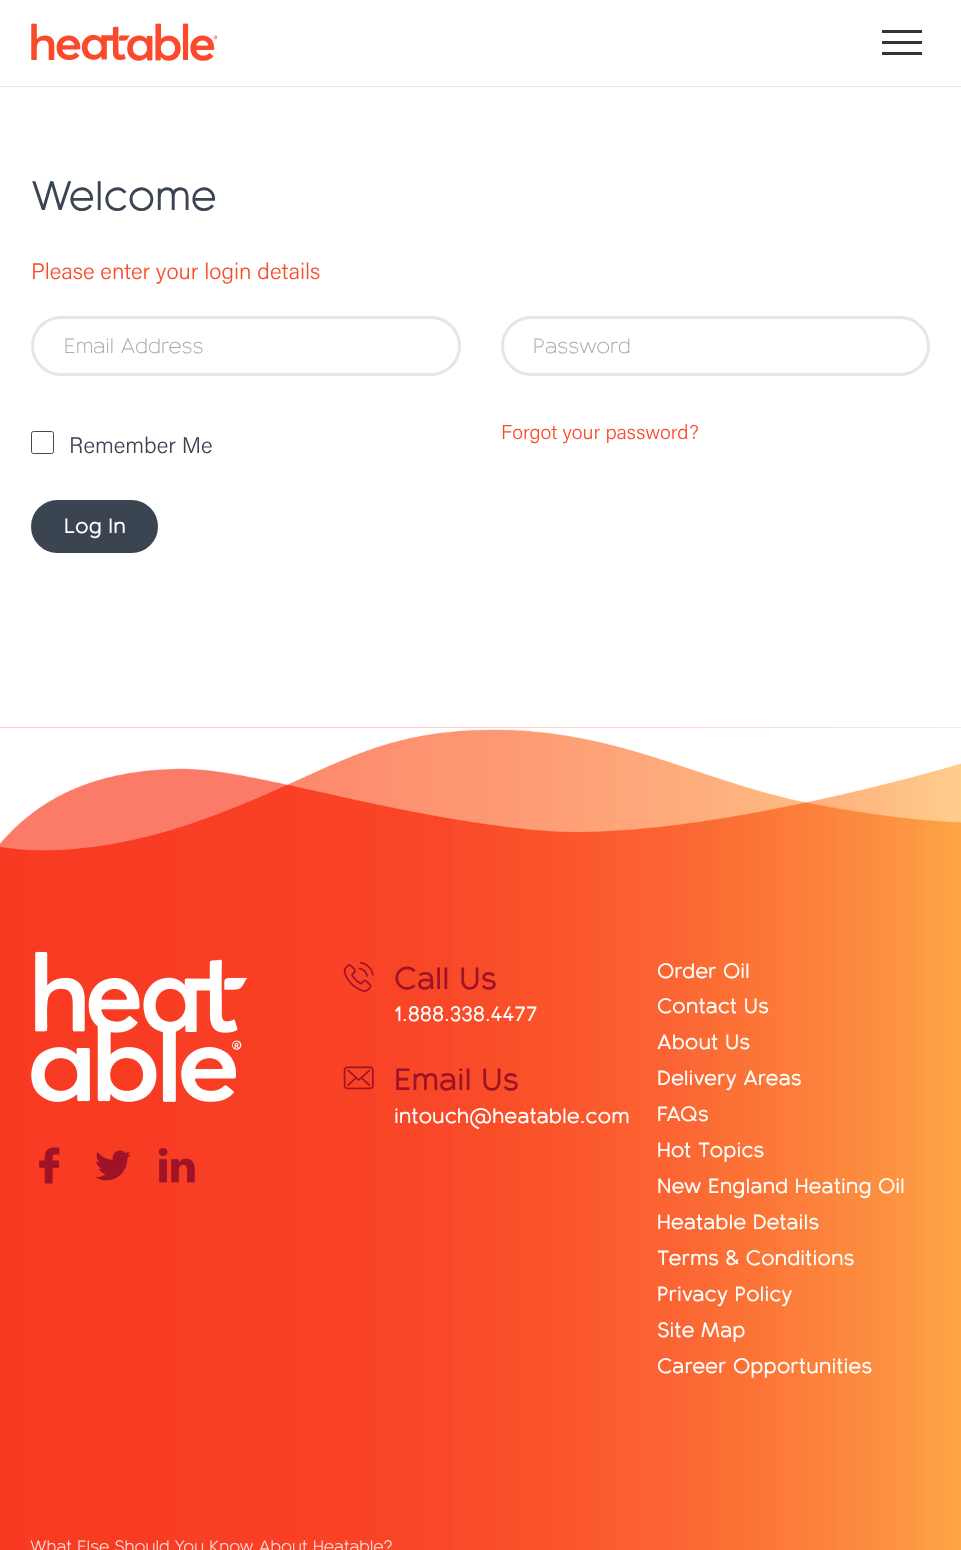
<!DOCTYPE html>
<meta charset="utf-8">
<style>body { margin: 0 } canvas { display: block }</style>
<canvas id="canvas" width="961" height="1550"></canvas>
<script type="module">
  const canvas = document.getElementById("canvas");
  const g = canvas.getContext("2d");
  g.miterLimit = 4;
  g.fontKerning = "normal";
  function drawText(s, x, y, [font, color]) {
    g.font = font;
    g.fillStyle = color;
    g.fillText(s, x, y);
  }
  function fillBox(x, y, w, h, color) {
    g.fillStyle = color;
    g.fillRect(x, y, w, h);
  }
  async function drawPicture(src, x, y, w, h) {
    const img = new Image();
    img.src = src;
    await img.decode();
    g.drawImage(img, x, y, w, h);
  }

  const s1 = ["40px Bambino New", "#3B4451"];
  const s2 = ["300 22.5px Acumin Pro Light", "#FB4A2B"];
  const s3 = ["300 20px Bambino New", "#AAAAAA"];
  const s4 = ["300 22.5px Acumin Pro Light", "#3B4451"];
  const s5 = ["300 20px Acumin Pro Light", "#FB4A2B"];
  const s6 = ["600 20px Bambino New", "#FFFFFF"];
  const s7 = ["600 30px Bambino New", "#9E1328"];
  const s8 = ["16px Bambino New", "#FED9D3"];

  fillBox(0, 0, 961, 1550, "#FFFFFF");
  fillBox(0, 86, 961, 1, "#E4E8EE");
  await drawPicture("pic1.png", 31, 23, 187, 38);
  g.fillStyle = "#333333";
  g.beginPath();
  g.moveTo(882, 30);
  g.lineTo(922, 30);
  g.lineTo(922, 33);
  g.lineTo(882, 33);
  g.closePath();
  g.moveTo(882, 41);
  g.lineTo(922, 41);
  g.lineTo(922, 44);
  g.lineTo(882, 44);
  g.closePath();
  g.moveTo(882, 52);
  g.lineTo(922, 52);
  g.lineTo(922, 55);
  g.lineTo(882, 55);
  g.closePath();
  g.fill();
  drawText("Welcome", 31, 210, s1);
  drawText("Please enter your login details", 31, 279, s2);
  g.beginPath();
  g.roundRect(32.5, 317.5, 427, 57, 28.5);
  g.strokeStyle = "#E3E6EA";
  g.lineWidth = 3;
  g.stroke();
  drawText("Email Address", 64, 353, s3);
  g.beginPath();
  g.roundRect(502.5, 317.5, 426, 57, 28.5);
  g.stroke();
  drawText("Password", 533, 353, s3);
  g.beginPath();
  g.roundRect(31.5, 431.5, 22, 22, 2);
  g.strokeStyle = "#46484A";
  g.lineWidth = 1;
  g.stroke();
  drawText("Remember Me", 69, 453, s4);
  drawText("Forgot your password?", 501, 439, s5);
  g.fillStyle = "#3B4451";
  g.beginPath();
  g.roundRect(32.5, 501.5, 124, 50, 25);
  g.fill();
  g.strokeStyle = "#3B4451";
  g.lineWidth = 3;
  g.stroke();
  drawText("Log In", 64, 533, s6);
  await drawPicture("pic2.png", 0, 727, 961, 823);
  await drawPicture("pic3.png", 0, 727, 961, 124);
  await drawPicture("pic4.png", 31, 951, 217, 151);
  await drawPicture("pic5.png", 39, 1147, 21, 37);
  await drawPicture("pic6.png", 95, 1150, 36, 31);
  await drawPicture("pic7.png", 158, 1148, 37, 35);
  await drawPicture("pic8.png", 343, 961, 31, 31);
  drawText("Call Us", 394, 989, s7);
  drawText("1.888.338.4477", 394, 1021, s6);
  await drawPicture("pic9.png", 343, 1066, 31, 24);
  drawText("Email Us", 394, 1090, s7);
  drawText("intouch@heatable.com", 394, 1123, s6);
  drawText("Order Oil", 657, 978, s6);
  drawText("Contact Us", 657, 1013, s6);
  drawText("About Us", 657, 1049, s6);
  drawText("Delivery Areas", 657, 1085, s6);
  drawText("FAQs", 657, 1121, s6);
  drawText("Hot Topics", 657, 1157, s6);
  drawText("New England Heating Oil", 657, 1193, s6);
  drawText("Heatable Details", 657, 1229, s6);
  drawText("Terms & Conditions", 657, 1265, s6);
  drawText("Privacy Policy", 657, 1301, s6);
  drawText("Site Map", 657, 1337, s6);
  drawText("Career Opportunities", 657, 1373, s6);
  drawText("What Else Should You Know About Heatable?", 30, 1552, s8);
</script>
